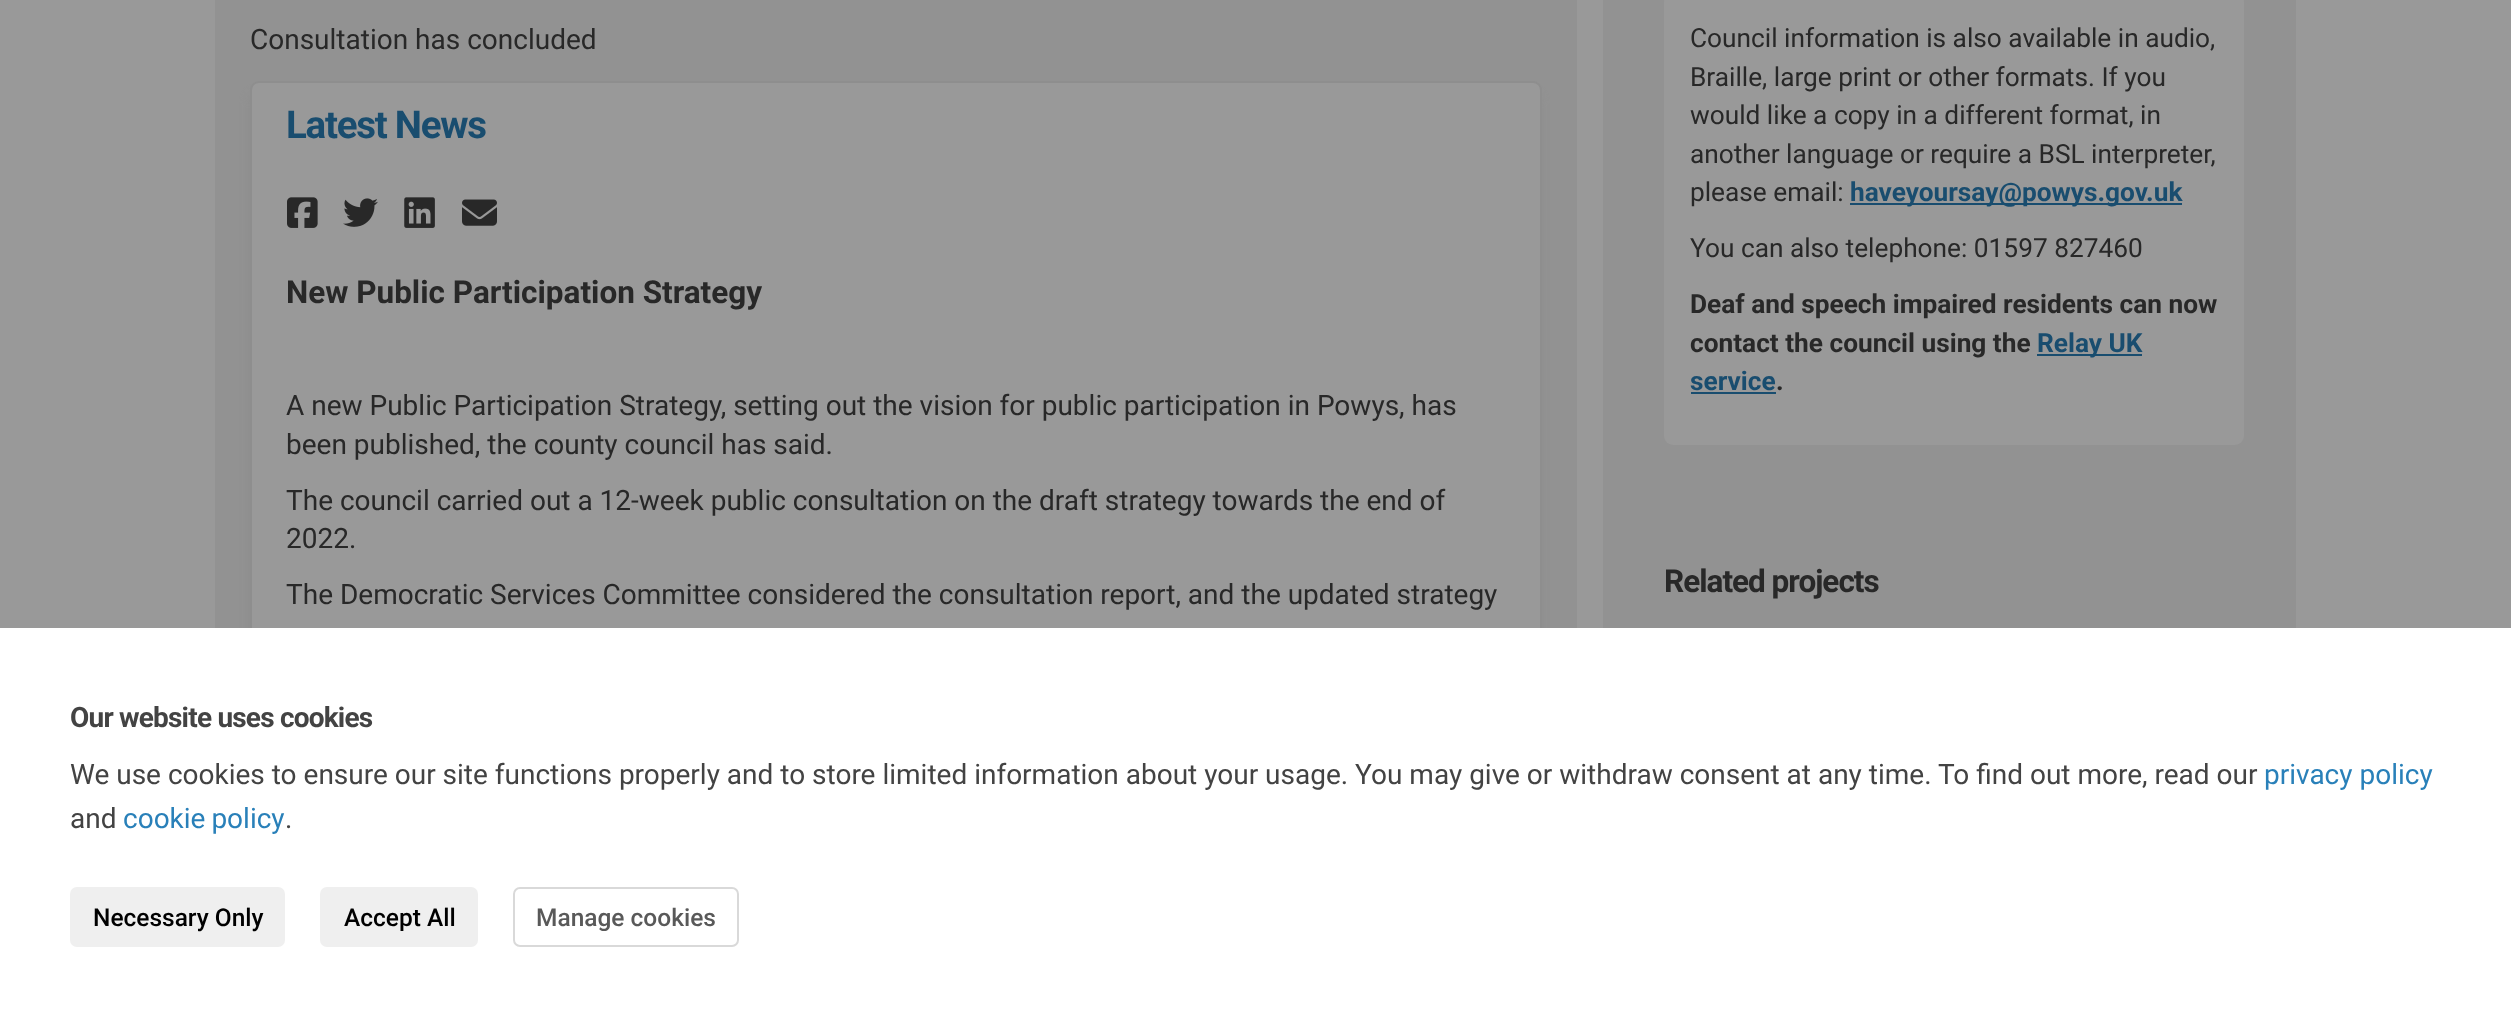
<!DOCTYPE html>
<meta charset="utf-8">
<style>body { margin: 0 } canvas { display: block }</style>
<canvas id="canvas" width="2511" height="1016"></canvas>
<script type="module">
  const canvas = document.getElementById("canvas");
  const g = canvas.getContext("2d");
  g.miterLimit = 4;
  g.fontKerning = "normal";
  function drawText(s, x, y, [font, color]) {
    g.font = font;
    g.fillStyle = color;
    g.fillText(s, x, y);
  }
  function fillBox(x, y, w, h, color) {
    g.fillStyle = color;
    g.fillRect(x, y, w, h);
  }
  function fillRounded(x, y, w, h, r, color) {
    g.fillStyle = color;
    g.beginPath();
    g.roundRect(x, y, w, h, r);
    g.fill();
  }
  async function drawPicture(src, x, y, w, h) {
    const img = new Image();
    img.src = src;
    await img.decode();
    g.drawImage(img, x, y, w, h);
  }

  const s1 = ["28px Roboto", "#282828"];
  const s2 = ["bold 38.5px Roboto", "#194D6F"];
  const s3 = ["bold 31.5px Roboto", "#282828"];
  const s4 = ["26.25px Roboto", "#282828"];
  const s5 = ["bold 26.25px Roboto", "#194D6F"];
  const s6 = ["bold 26.25px Roboto", "#282828"];
  const s7 = ["bold 28px Roboto", "#434343"];
  const s8 = ["28px Roboto", "#434343"];
  const s9 = ["28px Roboto", "#2980B9"];
  const s10 = ["500 24.5px Roboto", "#000000"];
  const s11 = ["500 24.5px Roboto", "#595959"];

  fillBox(0, 0, 2511, 1016, "#999999");
  fillBox(215, 0, 1362, 628, "#929292");
  drawText("Consultation has concluded", 250, 49, s1);
  g.fillStyle = "#8D8D8D";
  g.filter = "blur(4.5px)";
  g.beginPath();
  g.roundRect(249, 93, 1291, 576, 9);
  g.fill();
  g.filter = "none";
  g.fillStyle = "#999999";
  g.beginPath();
  g.roundRect(251, 82, 1290, 573, 8);
  g.fill();
  g.strokeStyle = "#8E8E8E";
  g.lineWidth = 2;
  g.stroke();
  g.letterSpacing = "-1.25px";
  drawText("Latest News", 286, 138, s2);
  await drawPicture("pic1.png", 287, 197, 31, 31);
  await drawPicture("pic2.png", 343, 198, 35, 29);
  await drawPicture("pic3.png", 404, 197, 31, 31);
  await drawPicture("pic4.png", 462, 199, 35, 27);
  g.letterSpacing = "0px";
  drawText("New Public Participation Strategy", 286, 303, s3);
  drawText("A new Public Participation Strategy, setting out the vision for public participation in Powys, has", 286, 415, s1);
  drawText("been published, the county council has said.", 286, 454, s1);
  drawText("The council carried out a 12-week public consultation on the draft strategy towards the end of", 286, 510, s1);
  drawText("2022.", 286, 548, s1);
  drawText("The Democratic Services Committee considered the consultation report, and the updated strategy", 286, 604, s1);
  fillBox(1603, 0, 693, 628, "#929292");
  fillRounded(1664, -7, 580, 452, 9, "#999999");
  drawText("Council information is also available in audio,", 1690, 47, s4);
  drawText("Braille, large print or other formats. If you", 1690, 86, s4);
  drawText("would like a copy in a different format, in", 1690, 124, s4);
  drawText("another language or require a BSL interpreter,", 1690, 163, s4);
  drawText("please email:", 1690, 201, s4);
  fillBox(1850, 203, 332, 2, "#194D6F");
  drawText("haveyoursay@powys.gov.uk", 1850, 201, s5);
  drawText("You can also telephone: 01597 827460", 1690, 257, s4);
  drawText("Deaf and speech impaired residents can now", 1690, 313, s6);
  drawText("contact the council using the", 1690, 352, s6);
  fillBox(2037, 354, 105, 2, "#194D6F");
  drawText("Relay UK", 2037, 352, s5);
  drawText("service", 1690, 390, s5);
  drawText(".", 1776, 390, s6);
  fillBox(1691, 392, 85, 2, "#194D6F");
  g.letterSpacing = "-1px";
  drawText("Related projects", 1664, 592, s3);
  fillBox(0, 628, 2511, 388, "#FFFFFF");
  g.letterSpacing = "-0.8px";
  drawText("Our website uses cookies", 70, 727, s7);
  g.letterSpacing = "0px";
  drawText("We use cookies to ensure our site functions properly and to store limited information about your usage. You may give or withdraw consent at any time. To find out more, read our", 70, 784, s8);
  drawText("privacy policy", 2264, 784, s9);
  drawText("and", 70, 828, s8);
  g.wordSpacing = "-1px";
  drawText("cookie policy", 123, 828, s9);
  g.wordSpacing = "0px";
  drawText(".", 285, 828, s8);
  fillRounded(70, 887, 215, 60, 7, "#EFEFEF");
  drawText("Necessary Only", 93, 926, s10);
  fillRounded(320, 887, 158, 60, 7, "#EFEFEF");
  drawText("Accept All", 344, 926, s10);
  g.beginPath();
  g.roundRect(514, 888, 224, 58, 6);
  g.strokeStyle = "#D9D9D9";
  g.stroke();
  drawText("Manage cookies", 536, 926, s11);
</script>
